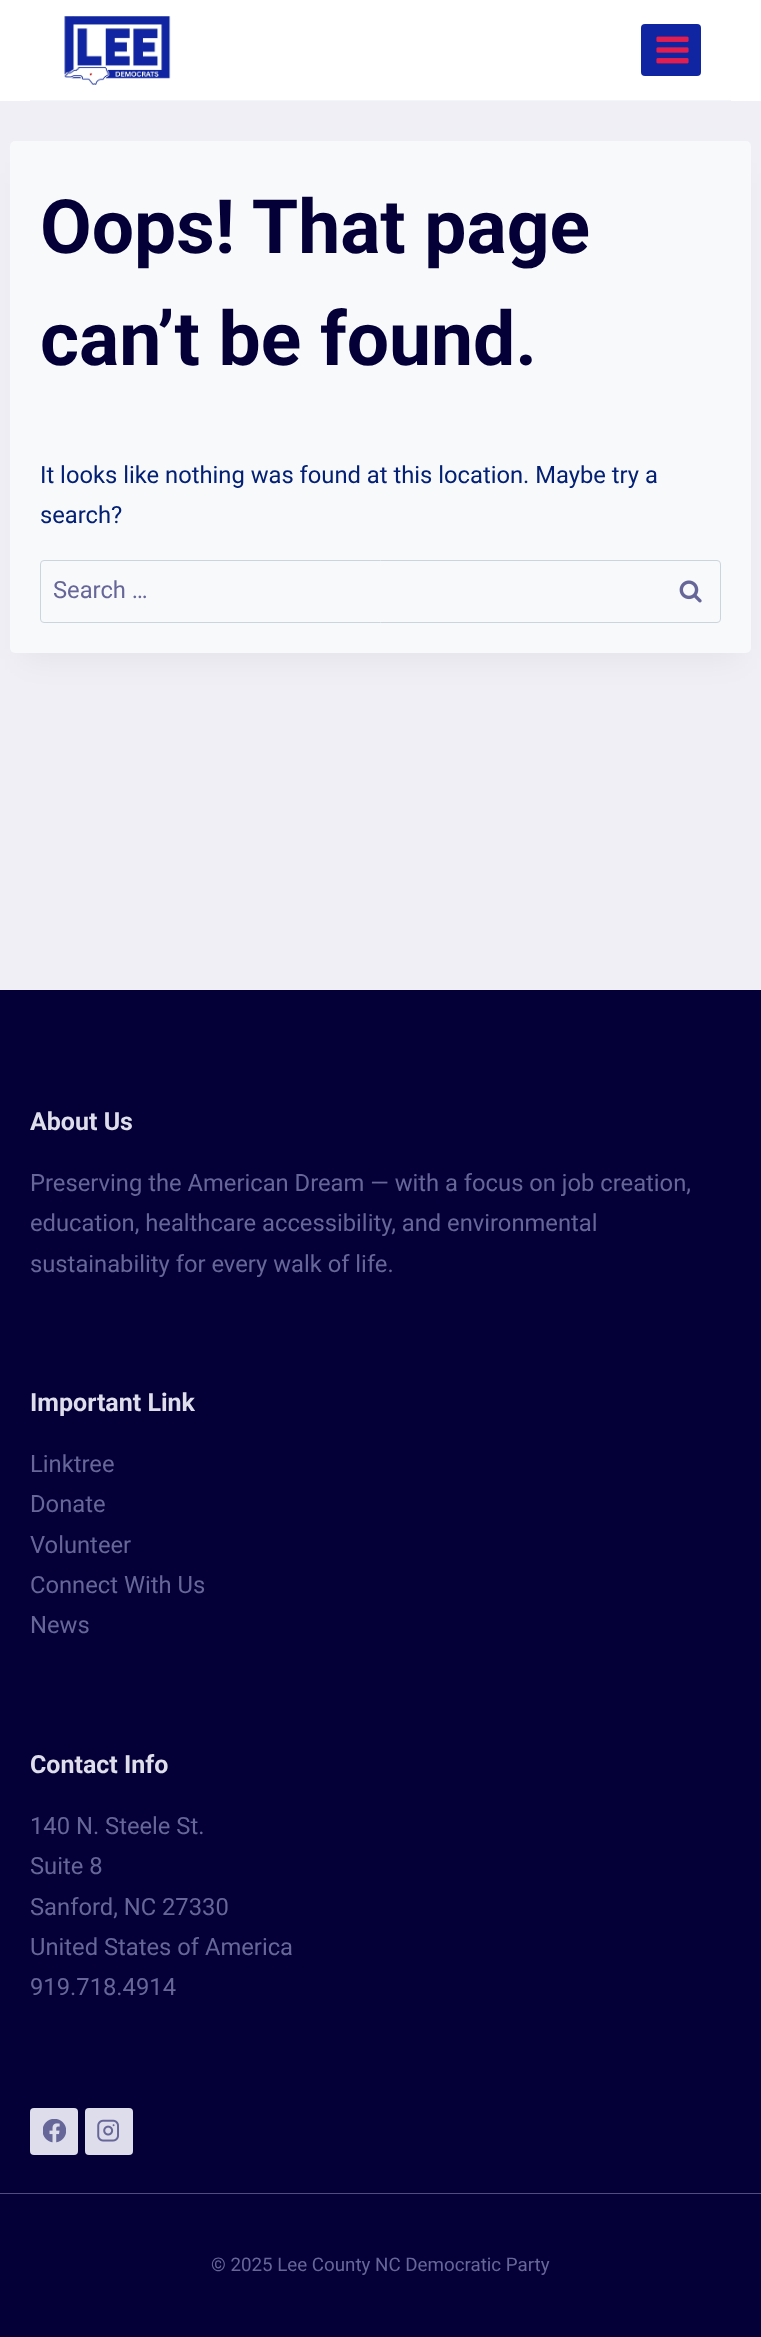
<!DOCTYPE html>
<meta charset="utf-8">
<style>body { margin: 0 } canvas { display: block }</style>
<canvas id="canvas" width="761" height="2337"></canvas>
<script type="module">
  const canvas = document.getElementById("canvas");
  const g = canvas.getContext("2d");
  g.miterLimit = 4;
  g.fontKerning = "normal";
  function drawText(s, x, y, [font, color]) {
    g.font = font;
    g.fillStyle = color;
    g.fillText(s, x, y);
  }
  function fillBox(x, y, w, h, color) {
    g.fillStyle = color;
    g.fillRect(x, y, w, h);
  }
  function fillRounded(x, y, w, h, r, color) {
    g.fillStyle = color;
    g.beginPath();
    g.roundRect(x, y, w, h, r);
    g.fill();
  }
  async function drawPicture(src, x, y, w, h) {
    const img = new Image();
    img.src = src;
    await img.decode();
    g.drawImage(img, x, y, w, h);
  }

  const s1 = ["bold 75px Roboto", "#040037"];
  const s2 = ["23.75px Roboto", "#032075"];
  const s3 = ["23.75px Roboto", "#666699"];
  const s4 = ["bold 25px Roboto", "#DEDDEB"];
  const s5 = ["18.75px Roboto", "#666699"];

  fillBox(0, 0, 761, 2337, "#EFEFF5");
  fillBox(0, 0, 761, 101, "#FFFFFF");
  fillBox(30, 100, 701, 1, "#F2F5F9");
  await drawPicture("pic1.png", 64, 16, 107, 69);
  fillRounded(641, 24, 60, 52, 4, "#1025A1");
  await drawPicture("pic2.png", 656, 36, 33, 28);
  g.fillStyle = "rgba(0, 0, 0, 0.05)";
  g.filter = "blur(15.5px)";
  g.beginPath();
  g.rect(23, 173, 716, 486);
  g.fill();
  g.filter = "none";
  fillRounded(10, 141, 741, 512, 5, "#F8F9FA");
  drawText("Oops! That page", 40, 253, s1);
  drawText("can’t be found.", 40, 365, s1);
  drawText("It looks like nothing was found at this location. Maybe try a", 40, 483, s2);
  drawText("search?", 40, 523, s2);
  g.beginPath();
  g.roundRect(40.5, 560.5, 680, 62, 3.5);
  g.strokeStyle = "#CBD5E0";
  g.stroke();
  drawText("Search …", 53, 598, s3);
  await drawPicture("pic3.png", 679, 580, 23, 23);
  fillBox(0, 990, 761, 1203, "#040037");
  drawText("About Us", 30, 1130, s4);
  drawText("Preserving the American Dream — with a focus on job creation,", 30, 1191, s3);
  drawText("education, healthcare accessibility, and environmental", 30, 1231, s3);
  drawText("sustainability for every walk of life.", 30, 1272, s3);
  drawText("Important Link", 30, 1411, s4);
  drawText("Linktree", 30, 1472, s3);
  drawText("Donate", 30, 1512, s3);
  drawText("Volunteer", 30, 1553, s3);
  drawText("Connect With Us", 30, 1593, s3);
  drawText("News", 30, 1633, s3);
  drawText("Contact Info", 30, 1773, s4);
  drawText("140 N. Steele St.", 30, 1834, s3);
  drawText("Suite 8", 30, 1874, s3);
  drawText("Sanford, NC 27330", 30, 1915, s3);
  drawText("United States of America", 30, 1955, s3);
  drawText("919.718.4914", 30, 1995, s3);
  fillRounded(30, 2108, 48, 47, 4, "#DEDDEB");
  await drawPicture("pic4.png", 43, 2119, 23, 24);
  fillRounded(85, 2108, 48, 47, 4, "#DEDDEB");
  await drawPicture("pic5.png", 97, 2119, 22, 23);
  fillBox(0, 2194, 761, 143, "#040037");
  fillBox(0, 2193, 761, 1, "#514D7C");
  drawText("© 2025 Lee County NC Democratic Party", 211, 2271, s5);
</script>
